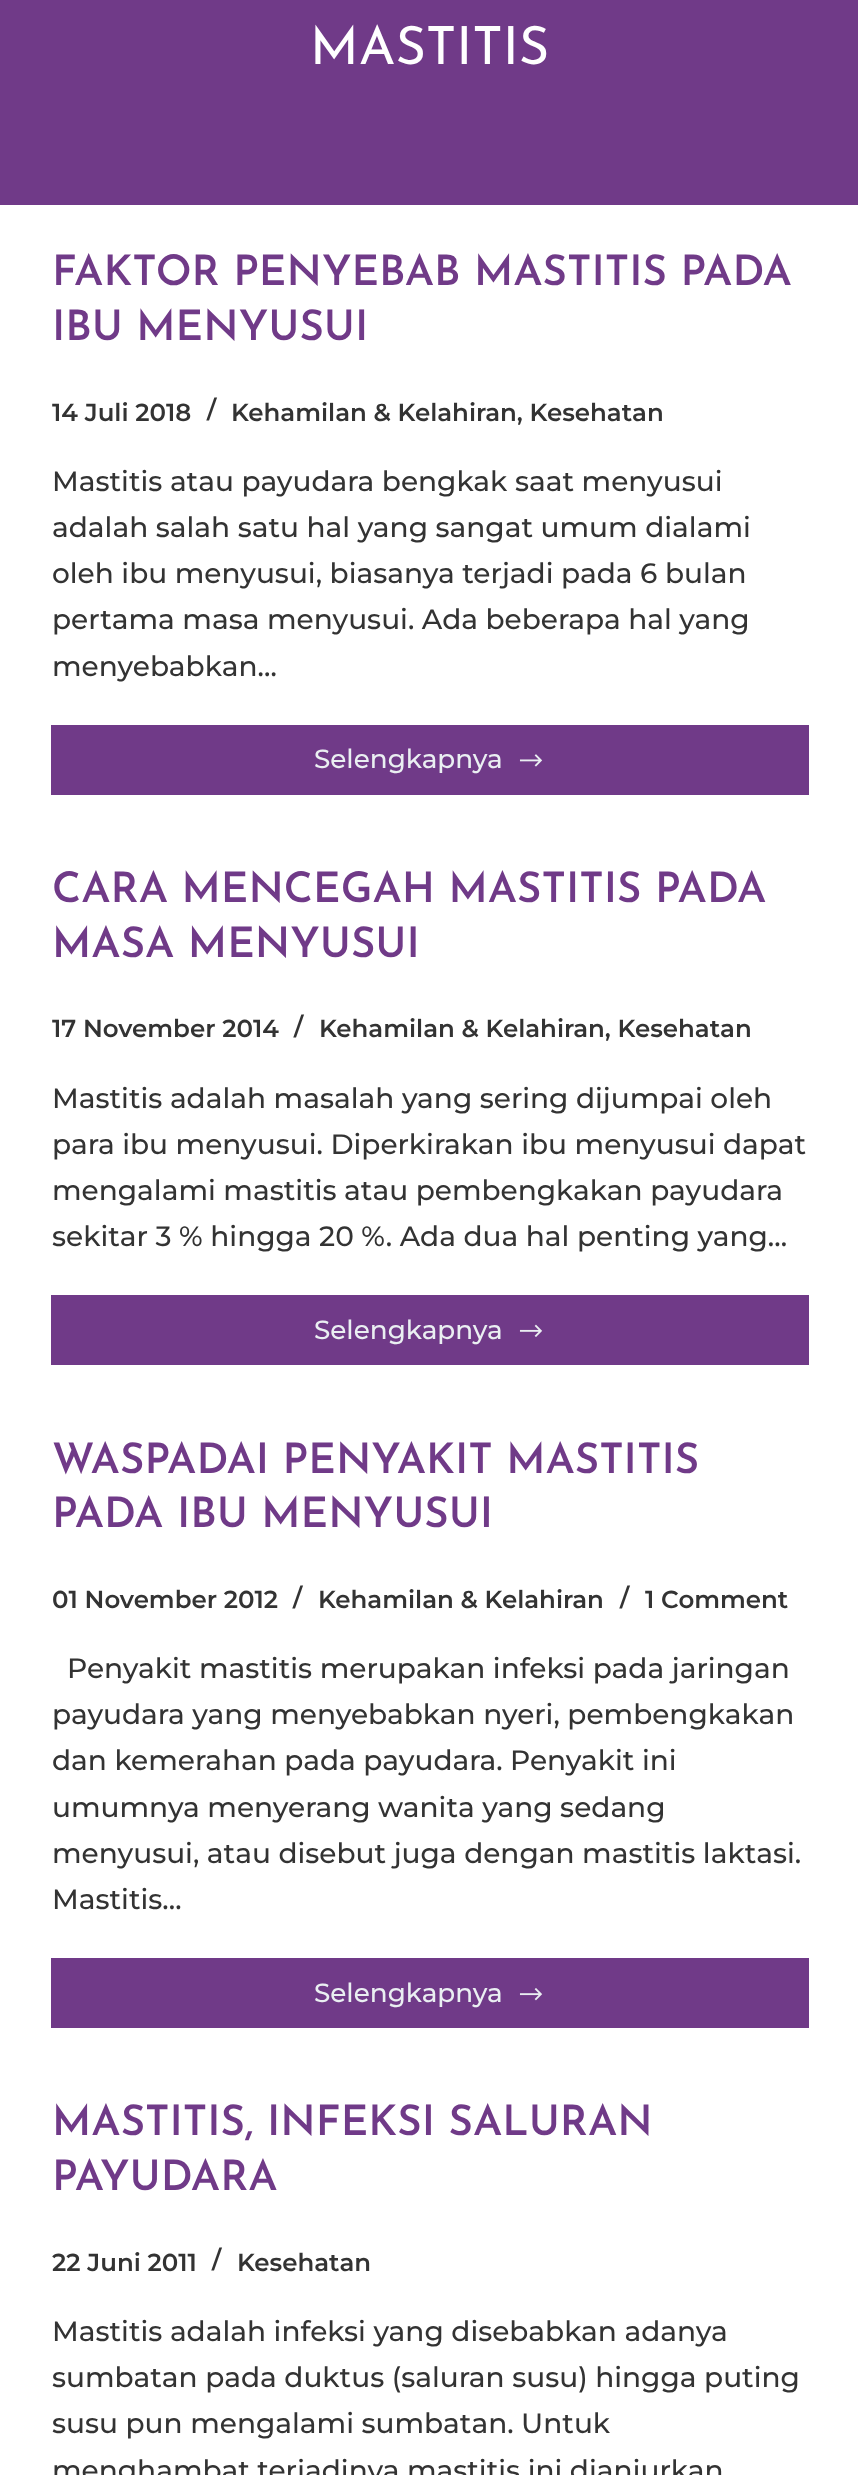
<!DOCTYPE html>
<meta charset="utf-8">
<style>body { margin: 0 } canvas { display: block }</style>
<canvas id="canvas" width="858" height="2475"></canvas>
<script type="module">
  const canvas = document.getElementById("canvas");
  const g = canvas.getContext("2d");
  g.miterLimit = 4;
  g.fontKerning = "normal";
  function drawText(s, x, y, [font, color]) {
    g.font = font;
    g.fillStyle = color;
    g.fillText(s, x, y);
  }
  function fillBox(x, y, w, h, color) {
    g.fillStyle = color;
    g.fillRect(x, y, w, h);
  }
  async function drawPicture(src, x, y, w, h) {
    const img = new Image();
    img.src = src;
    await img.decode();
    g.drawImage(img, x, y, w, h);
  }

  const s1 = ["52.5px Josefin Sans", "#FFFFFF"];
  const s2 = ["600 42px Josefin Sans", "#703A88"];
  const s3 = ["600 24.5px Montserrat", "#333333"];
  const s4 = ["500 28px Montserrat", "#333333"];
  const s5 = ["500 26.25px Montserrat", "#EAEFF2"];

  fillBox(0, 0, 858, 2475, "#FFFFFF");
  fillBox(0, 0, 858, 205, "#703A88");
  drawText("MASTITIS", 310, 64, s1);
  drawText("FAKTOR PENYEBAB MASTITIS PADA", 52, 285, s2);
  drawText("IBU MENYUSUI", 52, 340, s2);
  drawText("14 Juli 2018", 52, 421, s3);
  drawText("/", 207, 418, s3);
  drawText("Kehamilan & Kelahiran, Kesehatan", 231, 421, s3);
  drawText("Mastitis atau payudara bengkak saat menyusui", 52, 491, s4);
  drawText("adalah salah satu hal yang sangat umum dialami", 52, 537, s4);
  drawText("oleh ibu menyusui, biasanya terjadi pada 6 bulan", 52, 583, s4);
  drawText("pertama masa menyusui. Ada beberapa hal yang", 52, 629, s4);
  drawText("menyebabkan…", 52, 676, s4);
  fillBox(51, 725, 758, 70, "#703A88");
  drawText("Selengkapnya", 314, 768, s5);
  await drawPicture("pic1.png", 519, 754, 24, 13);
  drawText("CARA MENCEGAH MASTITIS PADA", 52, 902, s2);
  drawText("MASA MENYUSUI", 52, 957, s2);
  drawText("17 November 2014", 52, 1037, s3);
  drawText("/", 294, 1035, s3);
  drawText("Kehamilan & Kelahiran, Kesehatan", 319, 1037, s3);
  drawText("Mastitis adalah masalah yang sering dijumpai oleh", 52, 1108, s4);
  drawText("para ibu menyusui. Diperkirakan ibu menyusui dapat", 52, 1154, s4);
  drawText("mengalami mastitis atau pembengkakan payudara", 52, 1200, s4);
  drawText("sekitar 3 % hingga 20 %. Ada dua hal penting yang…", 52, 1246, s4);
  fillBox(51, 1295, 758, 70, "#703A88");
  drawText("Selengkapnya", 314, 1339, s5);
  await drawPicture("pic2.png", 519, 1324, 24, 13);
  drawText("WASPADAI PENYAKIT MASTITIS", 52, 1473, s2);
  drawText("PADA IBU MENYUSUI", 52, 1527, s2);
  drawText("01 November 2012", 52, 1608, s3);
  drawText("/", 293, 1606, s3);
  drawText("Kehamilan & Kelahiran", 318, 1608, s3);
  drawText("/", 620, 1606, s3);
  drawText("1 Comment", 645, 1608, s3);
  drawText("Penyakit mastitis merupakan infeksi pada jaringan", 67, 1678, s4);
  drawText("payudara yang menyebabkan nyeri, pembengkakan", 52, 1724, s4);
  drawText("dan kemerahan pada payudara. Penyakit ini", 52, 1770, s4);
  drawText("umumnya menyerang wanita yang sedang", 52, 1817, s4);
  drawText("menyusui, atau disebut juga dengan mastitis laktasi.", 52, 1863, s4);
  drawText("Mastitis…", 52, 1909, s4);
  fillBox(51, 1958, 758, 70, "#703A88");
  drawText("Selengkapnya", 314, 2002, s5);
  await drawPicture("pic3.png", 519, 1988, 24, 13);
  drawText("MASTITIS, INFEKSI SALURAN", 52, 2135, s2);
  drawText("PAYUDARA", 52, 2190, s2);
  drawText("22 Juni 2011", 52, 2271, s3);
  drawText("/", 212, 2268, s3);
  drawText("Kesehatan", 237, 2271, s3);
  drawText("Mastitis adalah infeksi yang disebabkan adanya", 52, 2341, s4);
  drawText("sumbatan pada duktus (saluran susu) hingga puting", 52, 2387, s4);
  drawText("susu pun mengalami sumbatan. Untuk", 52, 2433, s4);
  drawText("menghambat terjadinya mastitis ini dianjurkan", 52, 2480, s4);
</script>
